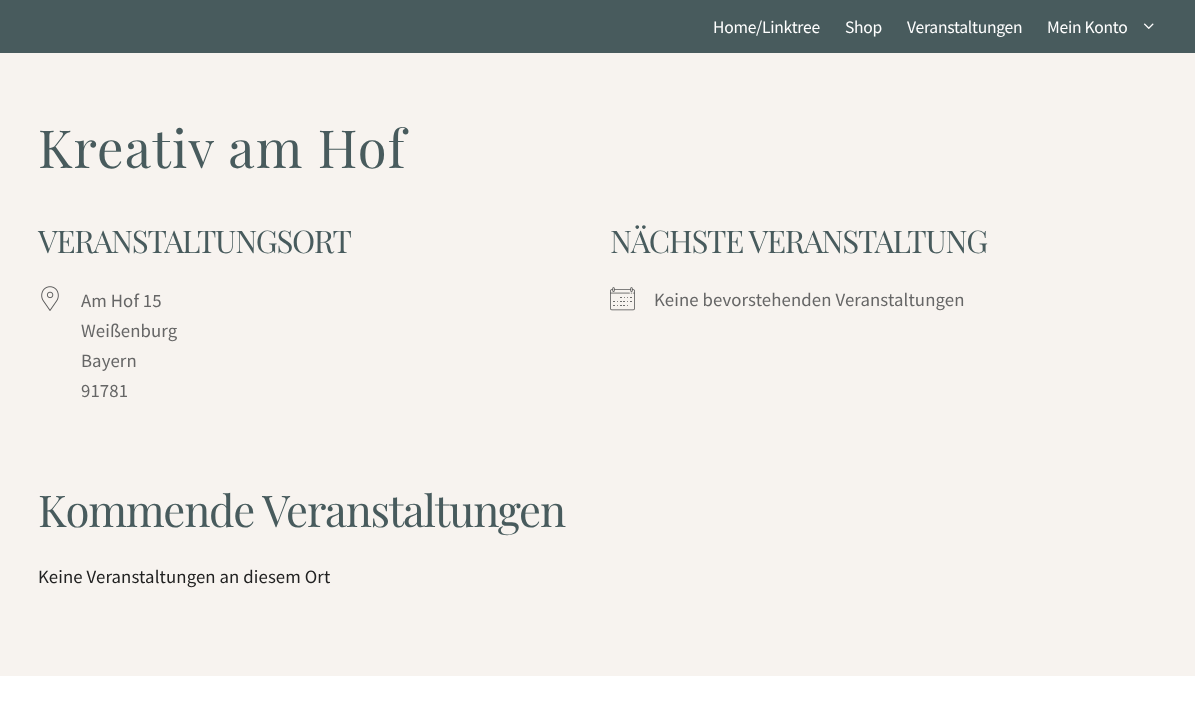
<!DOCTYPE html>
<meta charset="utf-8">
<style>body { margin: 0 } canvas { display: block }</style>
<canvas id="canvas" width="1195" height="722"></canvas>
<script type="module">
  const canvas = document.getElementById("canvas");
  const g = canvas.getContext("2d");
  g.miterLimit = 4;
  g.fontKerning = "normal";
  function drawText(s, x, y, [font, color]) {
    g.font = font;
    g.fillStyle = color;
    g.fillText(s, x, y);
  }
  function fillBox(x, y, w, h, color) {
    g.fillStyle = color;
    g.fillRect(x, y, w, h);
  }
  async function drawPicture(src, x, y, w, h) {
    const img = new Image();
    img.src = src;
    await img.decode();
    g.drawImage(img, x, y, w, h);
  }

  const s1 = ["17.5px Source Sans Pro", "#FFFFFF"];
  const s2 = ["52.5px Playfair Display", "#485B5D"];
  const s3 = ["31.25px Playfair Display", "#485B5D"];
  const s4 = ["18.75px Source Sans Pro", "#666666"];
  const s5 = ["43.75px Playfair Display", "#485B5D"];
  const s6 = ["18.75px Source Sans Pro", "#212121"];

  fillBox(0, 0, 1195, 722, "#F7F3EF");
  fillBox(0, 0, 1195, 53, "#485B5D");
  g.letterSpacing = "-0.25px";
  drawText("Home/Linktree", 713, 33, s1);
  drawText("Shop", 845, 33, s1);
  drawText("Veranstaltungen", 907, 33, s1);
  drawText("Mein Konto", 1047, 33, s1);
  await drawPicture("pic1.png", 1143, 23, 11, 6);
  g.letterSpacing = "1.2px";
  drawText("Kreativ am Hof", 38, 168, s2);
  g.letterSpacing = "-1.25px";
  drawText("VERANSTALTUNGSORT", 38, 253, s3);
  await drawPicture("pic2.png", 41, 286, 18, 25);
  g.letterSpacing = "0.1px";
  drawText("Am Hof 15", 81, 307, s4);
  drawText("Weißenburg", 81, 337, s4);
  drawText("Bayern", 81, 367, s4);
  drawText("91781", 81, 397, s4);
  g.letterSpacing = "-1.25px";
  drawText("NÄCHSTE VERANSTALTUNG", 610, 253, s3);
  await drawPicture("pic3.png", 610, 287, 25, 24);
  g.letterSpacing = "0.1px";
  drawText("Keine bevorstehenden Veranstaltungen", 654, 306, s4);
  g.letterSpacing = "-1.25px";
  drawText("Kommende Veranstaltungen", 38, 527, s5);
  g.letterSpacing = "0.1px";
  drawText("Keine Veranstaltungen an diesem Ort", 38, 583, s6);
  fillBox(0, 676, 1195, 46, "#FFFFFF");
</script>
